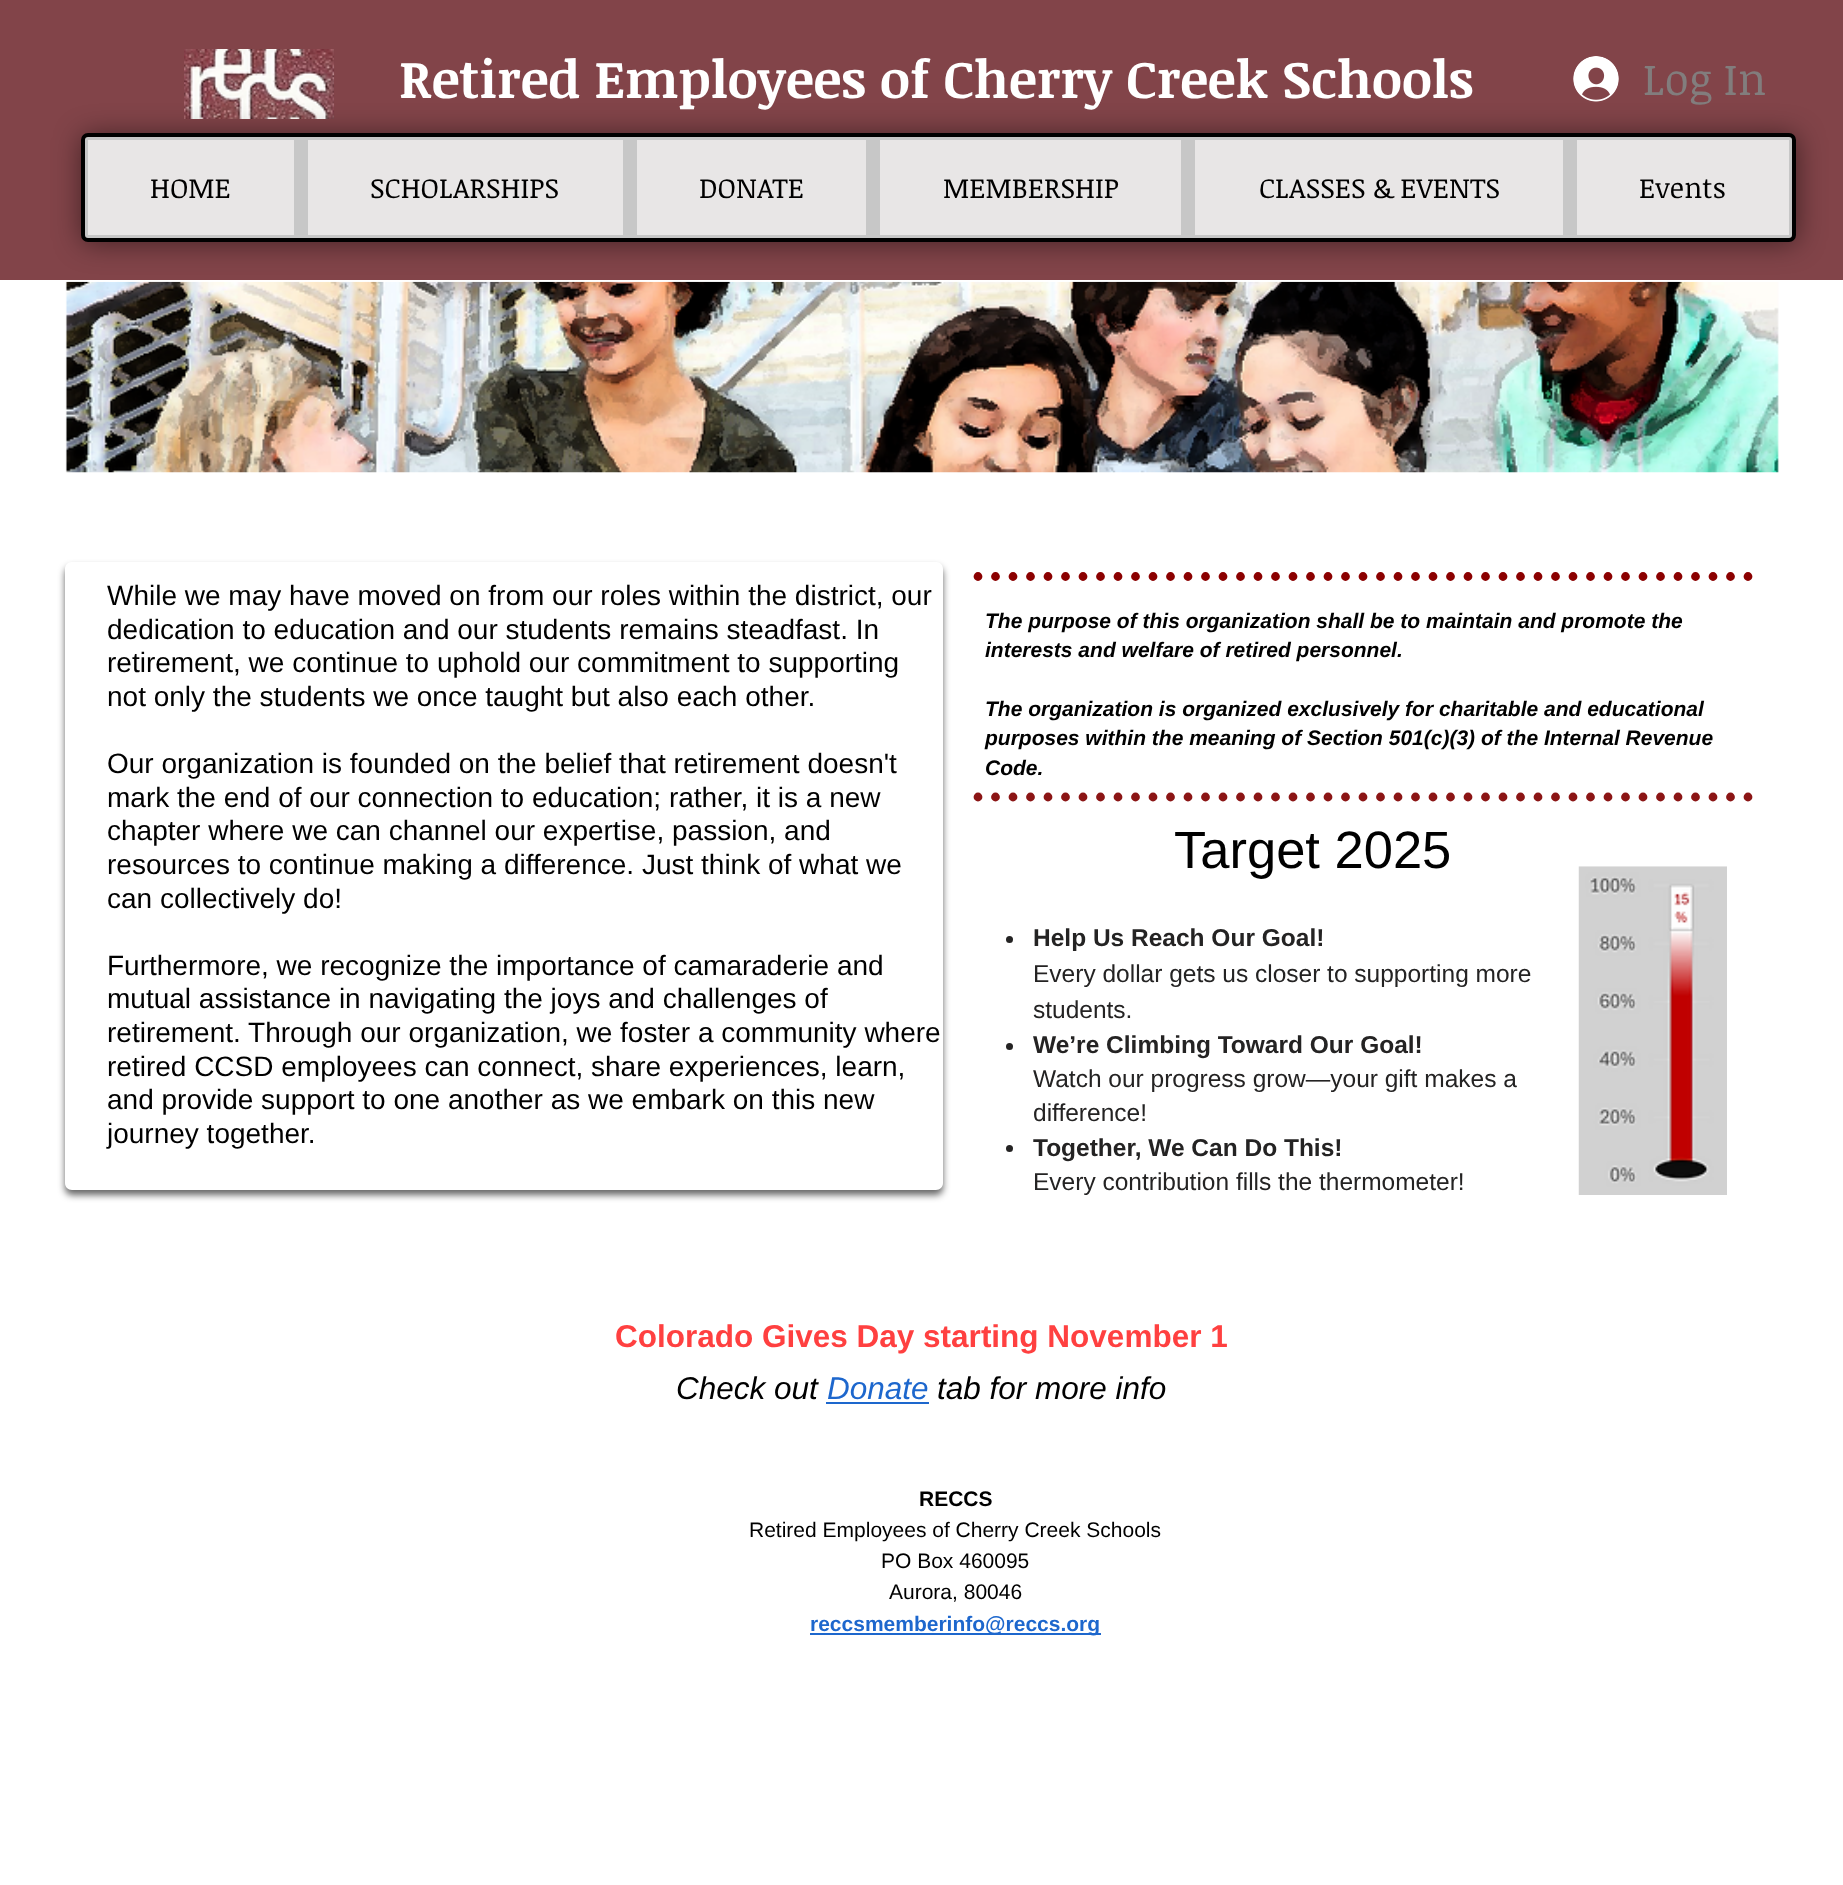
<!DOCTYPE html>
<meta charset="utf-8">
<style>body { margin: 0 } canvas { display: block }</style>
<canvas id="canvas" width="1843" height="1885"></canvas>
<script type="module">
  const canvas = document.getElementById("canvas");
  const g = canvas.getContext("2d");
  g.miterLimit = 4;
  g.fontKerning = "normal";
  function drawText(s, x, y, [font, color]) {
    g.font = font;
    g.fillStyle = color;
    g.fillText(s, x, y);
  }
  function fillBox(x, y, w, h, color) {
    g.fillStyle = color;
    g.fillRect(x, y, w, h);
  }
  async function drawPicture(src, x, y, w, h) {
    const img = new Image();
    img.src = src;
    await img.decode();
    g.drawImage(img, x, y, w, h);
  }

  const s1 = ["bold 52.5px Noticia Text", "#FFFFFF"];
  const s2 = ["44px Noticia Text", "#827D7D"];
  const s3 = ["28px Noticia Text", "#000000"];
  const s4 = ["28px Liberation Sans", "#000000"];
  const s5 = ["italic bold 21px Liberation Sans", "#000000"];
  const s6 = ["52.5px Liberation Sans", "#000000"];
  const s7 = ["bold 24.5px Liberation Sans", "#242323"];
  const s8 = ["24.5px Liberation Sans", "#242323"];
  const s9 = ["bold 31.5px Liberation Sans", "#FF4040"];
  const s10 = ["italic 31.5px Liberation Sans", "#000000"];
  const s11 = ["italic 31.5px Liberation Sans", "#1D67CD"];
  const s12 = ["bold 21px Liberation Sans", "#000000"];
  const s13 = ["21px Liberation Sans", "#000000"];
  const s14 = ["bold 21px Liberation Sans", "#1D67CD"];

  fillBox(0, 0, 1843, 1885, "#FFFFFF");
  fillBox(0, 0, 1843, 280, "#824449");
  await drawPicture("pic1.png", 184, 49, 151, 70);
  drawText("Retired Employees of Cherry Creek Schools", 399, 98, s1);
  await drawPicture("pic2.png", 1573, 56, 46, 46);
  drawText("Log In", 1643, 95, s2);
  await drawPicture("pic3.png", 65, 281, 1714, 192);
  g.fillStyle = "rgba(0, 0, 0, 0.5)";
  g.filter = "blur(14px)";
  g.beginPath();
  g.roundRect(82, 135, 1715, 108, 7);
  g.fill();
  g.filter = "none";
  g.fillStyle = "#C7C7C7";
  g.beginPath();
  g.roundRect(83, 135, 1711, 105, 5);
  g.fill();
  g.strokeStyle = "#000000";
  g.lineWidth = 4;
  g.stroke();
  fillBox(88, 140, 206, 95, "#E8E6E6");
  drawText("HOME", 150, 198, s3);
  fillBox(308, 140, 315, 95, "#E8E6E6");
  drawText("SCHOLARSHIPS", 370, 198, s3);
  fillBox(637, 140, 229, 95, "#E8E6E6");
  drawText("DONATE", 699, 198, s3);
  fillBox(880, 140, 301, 95, "#E8E6E6");
  drawText("MEMBERSHIP", 943, 198, s3);
  fillBox(1195, 140, 368, 95, "#E8E6E6");
  drawText("CLASSES & EVENTS", 1259, 198, s3);
  fillBox(1577, 140, 212, 95, "#E8E6E6");
  drawText("Events", 1639, 198, s3);
  g.beginPath();
  g.moveTo(978, 576.5);
  g.lineTo(1760.5, 576.5);
  g.strokeStyle = "#8B0000";
  g.lineWidth = 8.8;
  g.lineCap = "round";
  g.setLineDash([0, 17.5]);
  g.stroke();
  g.save();
  g.beginPath();
  g.moveTo(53, 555);
  g.lineTo(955, 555);
  g.lineTo(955, 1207);
  g.lineTo(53, 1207);
  g.closePath();
  g.moveTo(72, 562);
  g.lineTo(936, 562);
  g.bezierCurveTo(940, 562, 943, 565, 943, 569);
  g.lineTo(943, 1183);
  g.bezierCurveTo(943, 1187, 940, 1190, 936, 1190);
  g.lineTo(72, 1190);
  g.bezierCurveTo(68, 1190, 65, 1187, 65, 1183);
  g.lineTo(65, 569);
  g.bezierCurveTo(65, 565, 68, 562, 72, 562);
  g.closePath();
  g.clip("evenodd");
  g.fillStyle = "rgba(0, 0, 0, 0.6)";
  g.filter = "blur(3.5px)";
  g.beginPath();
  g.roundRect(65, 567, 878, 628, 7);
  g.fill();
  g.filter = "none";
  g.restore();
  drawText("While we may have moved on from our roles within the district, our", 107, 605, s4);
  drawText("dedication to education and our students remains steadfast. In", 107, 639, s4);
  drawText("retirement, we continue to uphold our commitment to supporting", 107, 672, s4);
  drawText("not only the students we once taught but also each other.", 107, 706, s4);
  drawText("Our organization is founded on the belief that retirement doesn't", 107, 773, s4);
  drawText("mark the end of our connection to education; rather, it is a new", 107, 807, s4);
  drawText("chapter where we can channel our expertise, passion, and", 107, 840, s4);
  drawText("resources to continue making a difference. Just think of what we", 107, 874, s4);
  drawText("can collectively do!", 107, 908, s4);
  drawText("Furthermore, we recognize the importance of camaraderie and", 107, 975, s4);
  drawText("mutual assistance in navigating the joys and challenges of", 107, 1008, s4);
  drawText("retirement. Through our organization, we foster a community where", 107, 1042, s4);
  drawText("retired CCSD employees can connect, share experiences, learn,", 107, 1076, s4);
  drawText("and provide support to one another as we embark on this new", 107, 1109, s4);
  drawText("journey together.", 107, 1143, s4);
  drawText("The purpose of this organization shall be to maintain and promote the", 985, 628, s5);
  drawText("interests and welfare of retired personnel.", 985, 657, s5);
  drawText("The organization is organized exclusively for charitable and educational", 985, 716, s5);
  drawText("purposes within the meaning of Section 501(c)(3) of the Internal Revenue", 985, 745, s5);
  drawText("Code.", 985, 775, s5);
  g.beginPath();
  g.moveTo(978, 797);
  g.lineTo(1760.5, 797);
  g.strokeStyle = "#8B1515";
  g.stroke();
  drawText("Target 2025", 1174, 868, s6);
  g.fillStyle = "#242323";
  g.beginPath();
  g.arc(1009.5, 939.5, 3.5, 0, Math.PI * 2);
  g.fill();
  drawText("Help Us Reach Our Goal!", 1033, 946, s7);
  drawText("Every dollar gets us closer to supporting more", 1033, 982, s8);
  drawText("students.", 1033, 1018, s8);
  g.beginPath();
  g.arc(1009.5, 1046.5, 3.5, 0, Math.PI * 2);
  g.fill();
  drawText("We’re Climbing Toward Our Goal!", 1033, 1053, s7);
  drawText("Watch our progress grow—your gift makes a", 1033, 1087, s8);
  drawText("difference!", 1033, 1121, s8);
  g.beginPath();
  g.arc(1009.5, 1148.5, 3.5, 0, Math.PI * 2);
  g.fill();
  drawText("Together, We Can Do This!", 1033, 1156, s7);
  drawText("Every contribution fills the thermometer!", 1033, 1190, s8);
  await drawPicture("pic4.png", 1578, 866, 149, 329);
  drawText("Colorado Gives Day starting November 1", 615, 1347, s9);
  drawText("Check out", 676, 1399, s10);
  drawText("Donate", 827, 1399, s11);
  fillBox(826, 1402, 103, 2, "#1D67CD");
  drawText("tab for more info", 937, 1399, s10);
  drawText("RECCS", 919, 1506, s12);
  drawText("Retired Employees of Cherry Creek Schools", 749, 1537, s13);
  drawText("PO Box 460095", 881, 1568, s13);
  drawText("Aurora, 80046", 889, 1599, s13);
  fillBox(810, 1633, 291, 2, "#1D67CD");
  drawText("reccsmemberinfo@reccs.org", 810, 1631, s14);
</script>
